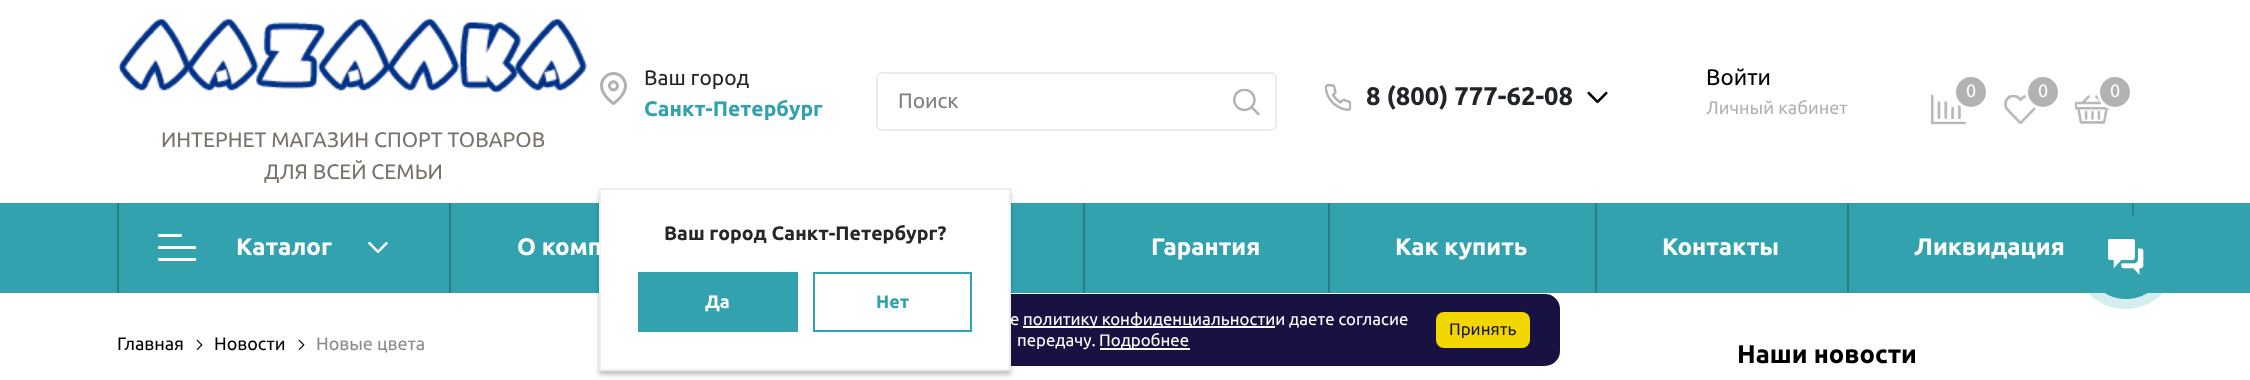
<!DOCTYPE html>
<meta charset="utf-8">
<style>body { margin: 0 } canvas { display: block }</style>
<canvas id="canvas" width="2250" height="380"></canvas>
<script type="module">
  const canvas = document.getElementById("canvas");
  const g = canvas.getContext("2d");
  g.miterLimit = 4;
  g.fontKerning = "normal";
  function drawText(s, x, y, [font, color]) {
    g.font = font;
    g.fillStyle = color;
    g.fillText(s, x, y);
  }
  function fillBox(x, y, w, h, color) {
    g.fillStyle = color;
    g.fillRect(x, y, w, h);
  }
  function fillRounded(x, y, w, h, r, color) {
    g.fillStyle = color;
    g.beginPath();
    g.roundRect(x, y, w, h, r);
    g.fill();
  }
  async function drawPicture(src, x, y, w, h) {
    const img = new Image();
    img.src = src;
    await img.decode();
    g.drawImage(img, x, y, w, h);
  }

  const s1 = ["21px Ubuntu", "#212529"];
  const s2 = ["bold 21px Ubuntu", "#32A3AE"];
  const s3 = ["bold 19.5px Ubuntu", "#272727"];
  const s4 = ["bold 18px Ubuntu", "#FFFFFF"];
  const s5 = ["bold 18px Ubuntu", "#32A3AE"];
  const s6 = ["bold 25.5px Ubuntu", "#212529"];
  const s7 = ["22.5px Ubuntu", "#000000"];
  const s8 = ["18px Ubuntu", "#B2B2B2"];
  const s9 = ["18px Ubuntu", "#FFFFFF"];
  const s10 = ["21px Ubuntu", "#808080"];
  const s11 = ["21px Ubuntu", "#79736A"];
  const s12 = ["bold 24px Ubuntu", "#FFFFFF"];
  const s13 = ["16.8px Ubuntu", "#FFFFFF"];
  const s14 = ["16.8px Ubuntu", "#171241"];
  const s15 = ["18px Ubuntu", "#000000"];
  const s16 = ["18px Ubuntu", "#8B8B8B"];
  const s17 = ["bold 25.5px Ubuntu", "#000000"];

  fillBox(0, 0, 2250, 380, "#FFFFFF");
  await drawPicture("pic1.png", 600, 72, 27, 33);
  drawText("Ваш город", 644, 85, s1);
  drawText("Санкт-Петербург", 644, 116, s2);
  fillBox(0, 203, 2250, 90, "#32A3AE");
  fillRounded(690, 294, 870, 72, 15, "#171241");
  g.fillStyle = "rgba(0, 0, 0, 0.23)";
  g.filter = "blur(2px)";
  g.beginPath();
  g.rect(599, 192, 412, 183);
  g.fill();
  g.filter = "none";
  g.fillStyle = "#FFFFFF";
  g.beginPath();
  g.rect(600, 189, 410, 181);
  g.fill();
  g.strokeStyle = "#EDEDED";
  g.lineWidth = 2;
  g.stroke();
  drawText("Ваш город Санкт-Петербург?", 664, 240, s3);
  fillBox(638, 272, 160, 60, "#32A3AE");
  drawText("Да", 705, 308, s4);
  g.strokeStyle = "#32A3AE";
  g.strokeRect(814, 273, 157, 58);
  drawText("Нет", 876, 308, s5);
  await drawPicture("pic2.png", 1324, 84, 28, 27);
  drawText("8 (800) 777-62-08", 1366, 105, s6);
  await drawPicture("pic3.png", 1587, 91, 21, 13);
  drawText("Войти", 1706, 85, s7);
  drawText("Личный кабинет", 1706, 114, s8);
  await drawPicture("pic4.png", 1931, 94, 35, 31);
  g.beginPath();
  g.arc(1971, 92, 16.5, 0, Math.PI * 2);
  g.fill();
  g.strokeStyle = "#FFFFFF";
  g.lineWidth = 3;
  g.stroke();
  drawText("0", 1966, 97, s9);
  await drawPicture("pic5.png", 2004, 94, 32, 31);
  g.fillStyle = "#B2B2B2";
  g.beginPath();
  g.arc(2043, 92, 16.5, 0, Math.PI * 2);
  g.fill();
  g.stroke();
  drawText("0", 2038, 97, s9);
  await drawPicture("pic6.png", 2074, 95, 36, 29);
  g.fillStyle = "#B2B2B2";
  g.beginPath();
  g.arc(2115, 92, 16.5, 0, Math.PI * 2);
  g.fill();
  g.stroke();
  drawText("0", 2110, 97, s9);
  g.beginPath();
  g.roundRect(877, 73, 399, 57, 5);
  g.strokeStyle = "#EBEBEB";
  g.lineWidth = 2;
  g.stroke();
  drawText("Поиск", 898, 108, s10);
  await drawPicture("pic7.png", 1233, 88, 27, 28);
  await drawPicture("pic8.png", 118, 18, 469, 75);
  drawText("ИНТЕРНЕТ МАГАЗИН СПОРТ ТОВАРОВ", 161, 147, s11);
  drawText("ДЛЯ ВСЕЙ СЕМЬИ", 264, 179, s11);
  fillBox(2132, 203, 2, 13, "#277E86");
  fillBox(117, 203, 2, 90, "#277E86");
  await drawPicture("pic9.png", 157, 234, 40, 27);
  drawText("Каталог", 236, 255, s12);
  await drawPicture("pic10.png", 368, 242, 20, 11);
  fillBox(449, 203, 2, 90, "#277E86");
  drawText("О комп", 517, 255, s12);
  fillBox(1083, 203, 2, 90, "#277E86");
  drawText("Гарантия", 1151, 255, s12);
  fillBox(1328, 203, 2, 90, "#277E86");
  drawText("Как купить", 1395, 255, s12);
  fillBox(1595, 203, 2, 90, "#277E86");
  drawText("Контакты", 1662, 255, s12);
  fillBox(1847, 203, 2, 90, "#277E86");
  drawText("Ликвидация", 1914, 255, s12);
  drawText("е", 1010, 325, s13);
  fillBox(1023, 326, 252, 2, "#FFFFFF");
  drawText("политику конфиденциальностии даете согласие", 1023, 325, s13);
  drawText("передачу.", 1017, 346, s13);
  fillBox(1100, 348, 90, 2, "#FFFFFF");
  drawText("Подробнее", 1099, 346, s13);
  fillRounded(1436, 312, 94, 36, 8, "#F1D600");
  drawText("Принять", 1449, 335, s14);
  drawText("Главная", 117, 350, s15);
  await drawPicture("pic11.png", 196, 339, 7, 11);
  drawText("Новости", 214, 350, s15);
  await drawPicture("pic11.png", 298, 339, 7, 11);
  drawText("Новые цвета", 316, 350, s16);
  drawText("Наши новости", 1737, 363, s17);
  g.fillStyle = "rgba(50, 163, 174, 0.2)";
  g.beginPath();
  g.arc(2125.5, 256.5, 52.5, 0, Math.PI * 2);
  g.fill();
  g.beginPath();
  g.arc(2126, 257, 41.5, 0, Math.PI * 2);
  g.strokeStyle = "#32A3AE";
  g.lineWidth = 1;
  g.stroke();
  g.fillStyle = "#32A3AE";
  g.beginPath();
  g.arc(2126, 257, 42, 0, Math.PI * 2);
  g.fill();
  await drawPicture("pic12.png", 2108, 239, 36, 36);
</script>
